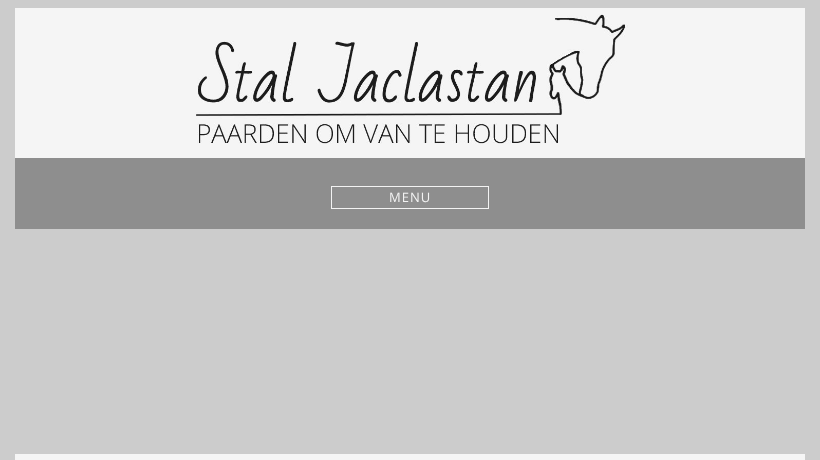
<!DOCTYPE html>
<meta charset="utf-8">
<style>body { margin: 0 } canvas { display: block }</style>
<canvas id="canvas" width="820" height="460"></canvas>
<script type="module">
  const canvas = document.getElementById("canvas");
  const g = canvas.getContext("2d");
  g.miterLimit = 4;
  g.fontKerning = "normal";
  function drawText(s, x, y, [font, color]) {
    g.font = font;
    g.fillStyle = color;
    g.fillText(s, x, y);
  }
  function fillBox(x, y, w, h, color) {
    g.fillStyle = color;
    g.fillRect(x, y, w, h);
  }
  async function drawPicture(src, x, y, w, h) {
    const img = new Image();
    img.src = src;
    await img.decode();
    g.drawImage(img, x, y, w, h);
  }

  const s1 = ["13px Open Sans", "#F3F3F3"];

  fillBox(0, 0, 820, 460, "#CCCCCC");
  fillBox(15, 8, 790, 150, "#F5F5F5");
  await drawPicture("pic1.png", 196, 14, 432, 130);
  fillBox(15, 158, 790, 71, "#8E8E8E");
  g.strokeStyle = "#F3F3F3";
  g.strokeRect(331.5, 186.5, 157, 22);
  g.letterSpacing = "1px";
  drawText("MENU", 389, 202, s1);
  fillBox(15, 454, 790, 6, "#F5F5F5");
</script>
